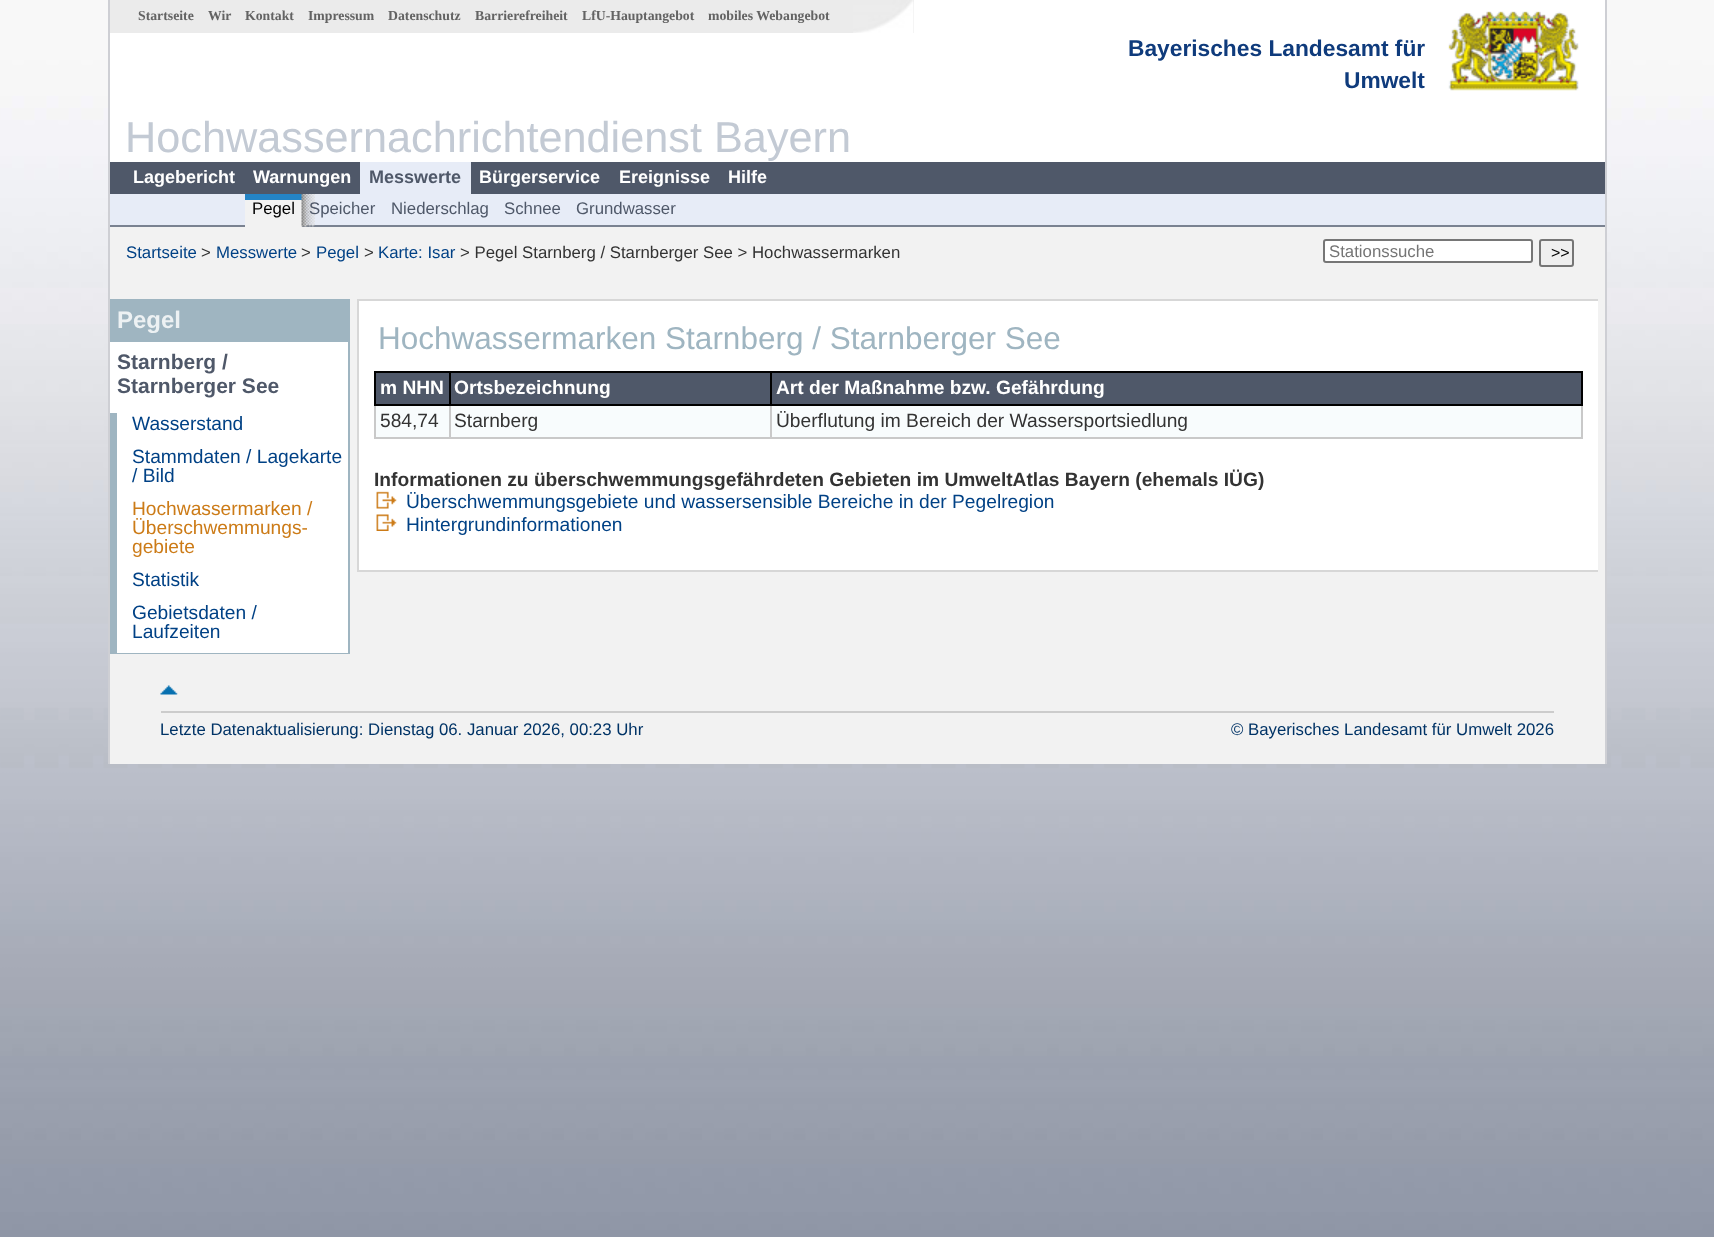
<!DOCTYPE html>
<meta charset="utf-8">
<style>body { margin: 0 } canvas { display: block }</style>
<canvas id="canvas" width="1714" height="1237"></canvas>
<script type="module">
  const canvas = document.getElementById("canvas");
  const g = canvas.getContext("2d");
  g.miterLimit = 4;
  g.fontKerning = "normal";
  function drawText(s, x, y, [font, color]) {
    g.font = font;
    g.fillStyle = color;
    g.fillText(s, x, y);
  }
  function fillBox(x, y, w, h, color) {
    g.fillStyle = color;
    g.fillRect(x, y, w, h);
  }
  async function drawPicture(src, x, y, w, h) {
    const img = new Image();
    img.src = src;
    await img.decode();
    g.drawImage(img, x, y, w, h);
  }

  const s1 = ["bold 13.75px Liberation Serif", "#636363"];
  const s2 = ["bold 22.75px Liberation Sans", "#0F3B7C"];
  const s3 = ["43.25px Liberation Sans", "#C3CAD4"];
  const s4 = ["bold 18px Liberation Sans", "#FFFFFF"];
  const s5 = ["bold 18px Liberation Sans", "#4F5869"];
  const s6 = ["16.8px Liberation Sans", "#000000"];
  const s7 = ["16.8px Liberation Sans", "#4F5869"];
  const s8 = ["16.8px Liberation Sans", "#004185"];
  const s9 = ["16.8px Liberation Sans", "#333333"];
  const s10 = ["16.8px Liberation Sans", "#757575"];
  const s11 = ["16px Liberation Sans", "#000000"];
  const s12 = ["bold 24px Liberation Sans", "#EDF1F3"];
  const s13 = ["bold 21px Liberation Sans", "#4F5869"];
  const s14 = ["19.2px Liberation Sans", "#004185"];
  const s15 = ["19.2px Liberation Sans", "#CC7B17"];
  const s16 = ["31.5px Liberation Sans", "#9FB5C1"];
  const s17 = ["bold 19.2px Liberation Sans", "#FFFFFF"];
  const s18 = ["19.2px Liberation Sans", "#333333"];
  const s19 = ["bold 19.2px Liberation Sans", "#333333"];
  const s20 = ["16.8px Liberation Sans", "#003366"];

  fillBox(0, 0, 1714, 1237, "#FFFFFF");
  await drawPicture("pic1.png", 0, 0, 1714, 1237);
  fillBox(110, 0, 1495, 162, "#FFFFFF");
  fillBox(1605, 0, 2, 764, "#CECFD4");
  fillBox(108, 0, 2, 764, "#CECFD4");
  await drawPicture("pic2.png", 1448, 11, 131, 80);
  fillBox(110, 0, 804, 33, "#EBEBEB");
  await drawPicture("pic3.png", 853, 0, 61, 33);
  drawText("Startseite", 138, 20, s1);
  drawText("Wir", 208, 20, s1);
  drawText("Kontakt", 245, 20, s1);
  drawText("Impressum", 308, 20, s1);
  drawText("Datenschutz", 388, 20, s1);
  drawText("Barrierefreiheit", 475, 20, s1);
  drawText("LfU-Hauptangebot", 582, 20, s1);
  drawText("mobiles Webangebot", 708, 20, s1);
  drawText("Bayerisches Landesamt für", 1128, 56, s2);
  drawText("Umwelt", 1344, 88, s2);
  drawText("Hochwassernachrichtendienst Bayern", 125, 152, s3);
  fillBox(110, 162, 1495, 32, "#4F5869");
  drawText("Lagebericht", 133, 183, s4);
  drawText("Warnungen", 253, 183, s4);
  fillBox(360, 162, 111, 32, "#E7ECF7");
  drawText("Messwerte", 369, 183, s5);
  drawText("Bürgerservice", 479, 183, s4);
  drawText("Ereignisse", 619, 183, s4);
  drawText("Hilfe", 728, 183, s4);
  fillBox(110, 194, 1495, 31, "#E7ECF7");
  fillBox(110, 225, 1495, 2, "#7A8291");
  fillBox(245, 200, 57, 27, "#F2F2F2");
  fillBox(245, 194, 57, 6, "#2484C6");
  drawText("Pegel", 252, 214, s6);
  await drawPicture("pic4.png", 301, 194, 14, 33);
  drawText("Speicher", 309, 214, s7);
  drawText("Niederschlag", 391, 214, s7);
  drawText("Schnee", 504, 214, s7);
  drawText("Grundwasser", 576, 214, s7);
  fillBox(110, 227, 1495, 537, "#F2F2F2");
  drawText("Startseite", 126, 258, s8);
  drawText(">", 201, 258, s9);
  drawText("Messwerte", 216, 258, s8);
  drawText(">", 301, 258, s9);
  drawText("Pegel", 316, 258, s8);
  drawText(">", 364, 258, s9);
  drawText("Karte: Isar", 378, 258, s8);
  drawText("> Pegel Starnberg / Starnberger See > Hochwassermarken", 460, 258, s9);
  g.fillStyle = "#FFFFFF";
  g.beginPath();
  g.roundRect(1324, 240, 208, 22, 2);
  g.fill();
  g.strokeStyle = "#767676";
  g.lineWidth = 2;
  g.stroke();
  drawText("Stationssuche", 1329, 257, s10);
  g.fillStyle = "#EFEFEF";
  g.beginPath();
  g.roundRect(1540, 240, 33, 26, 2);
  g.fill();
  g.stroke();
  drawText(">>", 1551, 258, s11);
  fillBox(110, 342, 238, 311, "#FFFFFF");
  fillBox(110, 299, 240, 1, "#9FB5C1");
  fillBox(348, 299, 2, 355, "#9FB5C1");
  fillBox(110, 653, 240, 1, "#9FB5C1");
  fillBox(110, 300, 238, 42, "#9FB5C1");
  drawText("Pegel", 117, 328, s12);
  drawText("Starnberg /", 117, 369, s13);
  drawText("Starnberger See", 117, 393, s13);
  fillBox(110, 413, 7, 240, "#9FB5C1");
  drawText("Wasserstand", 132, 430, s14);
  drawText("Stammdaten / Lagekarte", 132, 463, s14);
  drawText("/ Bild", 132, 482, s14);
  drawText("Hochwassermarken /", 132, 515, s15);
  drawText("Überschwemmungs-", 132, 534, s15);
  drawText("gebiete", 132, 553, s15);
  drawText("Statistik", 132, 586, s14);
  drawText("Gebietsdaten /", 132, 619, s14);
  drawText("Laufzeiten", 132, 638, s14);
  fillBox(359, 301, 1239, 269, "#FFFFFF");
  fillBox(357, 299, 1241, 2, "#D7D7D7");
  fillBox(357, 570, 1241, 2, "#D7D7D7");
  fillBox(357, 299, 2, 273, "#D7D7D7");
  drawText("Hochwassermarken Starnberg / Starnberger See", 378, 349, s16);
  fillBox(376, 373, 73, 31, "#4F5869");
  fillBox(770, 371, 813, 2, "#000000");
  fillBox(1581, 404, 2, 34, "#C9C9C9");
  fillBox(1581, 371, 2, 34, "#000000");
  fillBox(376, 406, 1205, 31, "#F8FCFD");
  fillBox(770, 437, 813, 2, "#C9C9C9");
  fillBox(770, 404, 2, 34, "#C9C9C9");
  fillBox(770, 404, 813, 2, "#000000");
  fillBox(770, 371, 2, 34, "#000000");
  fillBox(449, 371, 322, 2, "#000000");
  fillBox(449, 437, 322, 2, "#C9C9C9");
  fillBox(449, 404, 2, 34, "#C9C9C9");
  fillBox(449, 404, 322, 2, "#000000");
  fillBox(449, 371, 2, 34, "#000000");
  fillBox(374, 371, 76, 2, "#000000");
  fillBox(374, 437, 76, 2, "#C9C9C9");
  fillBox(374, 404, 2, 34, "#C9C9C9");
  fillBox(374, 404, 76, 2, "#000000");
  fillBox(374, 371, 2, 34, "#000000");
  drawText("m NHN", 380, 394, s17);
  fillBox(451, 373, 319, 31, "#4F5869");
  drawText("Ortsbezeichnung", 454, 394, s17);
  fillBox(772, 373, 809, 31, "#4F5869");
  drawText("Art der Maßnahme bzw. Gefährdung", 776, 394, s17);
  drawText("584,74", 380, 427, s18);
  drawText("Starnberg", 454, 427, s18);
  drawText("Überflutung im Bereich der Wassersportsiedlung", 776, 427, s18);
  drawText("Informationen zu überschwemmungsgefährdeten Gebieten im UmweltAtlas Bayern (ehemals IÜG)", 374, 486, s19);
  await drawPicture("pic5.png", 376, 491, 21, 18);
  drawText("Überschwemmungsgebiete und wassersensible Bereiche in der Pegelregion", 406, 508, s14);
  await drawPicture("pic6.png", 376, 514, 21, 17);
  drawText("Hintergrundinformationen", 406, 531, s14);
  await drawPicture("pic7.png", 160, 685, 18, 10);
  fillBox(161, 711, 1393, 2, "#CCCCCC");
  drawText("Letzte Datenaktualisierung: Dienstag 06. Januar 2026, 00:23 Uhr", 160, 735, s20);
  drawText("© Bayerisches Landesamt für Umwelt 2026", 1231, 735, s20);
</script>
